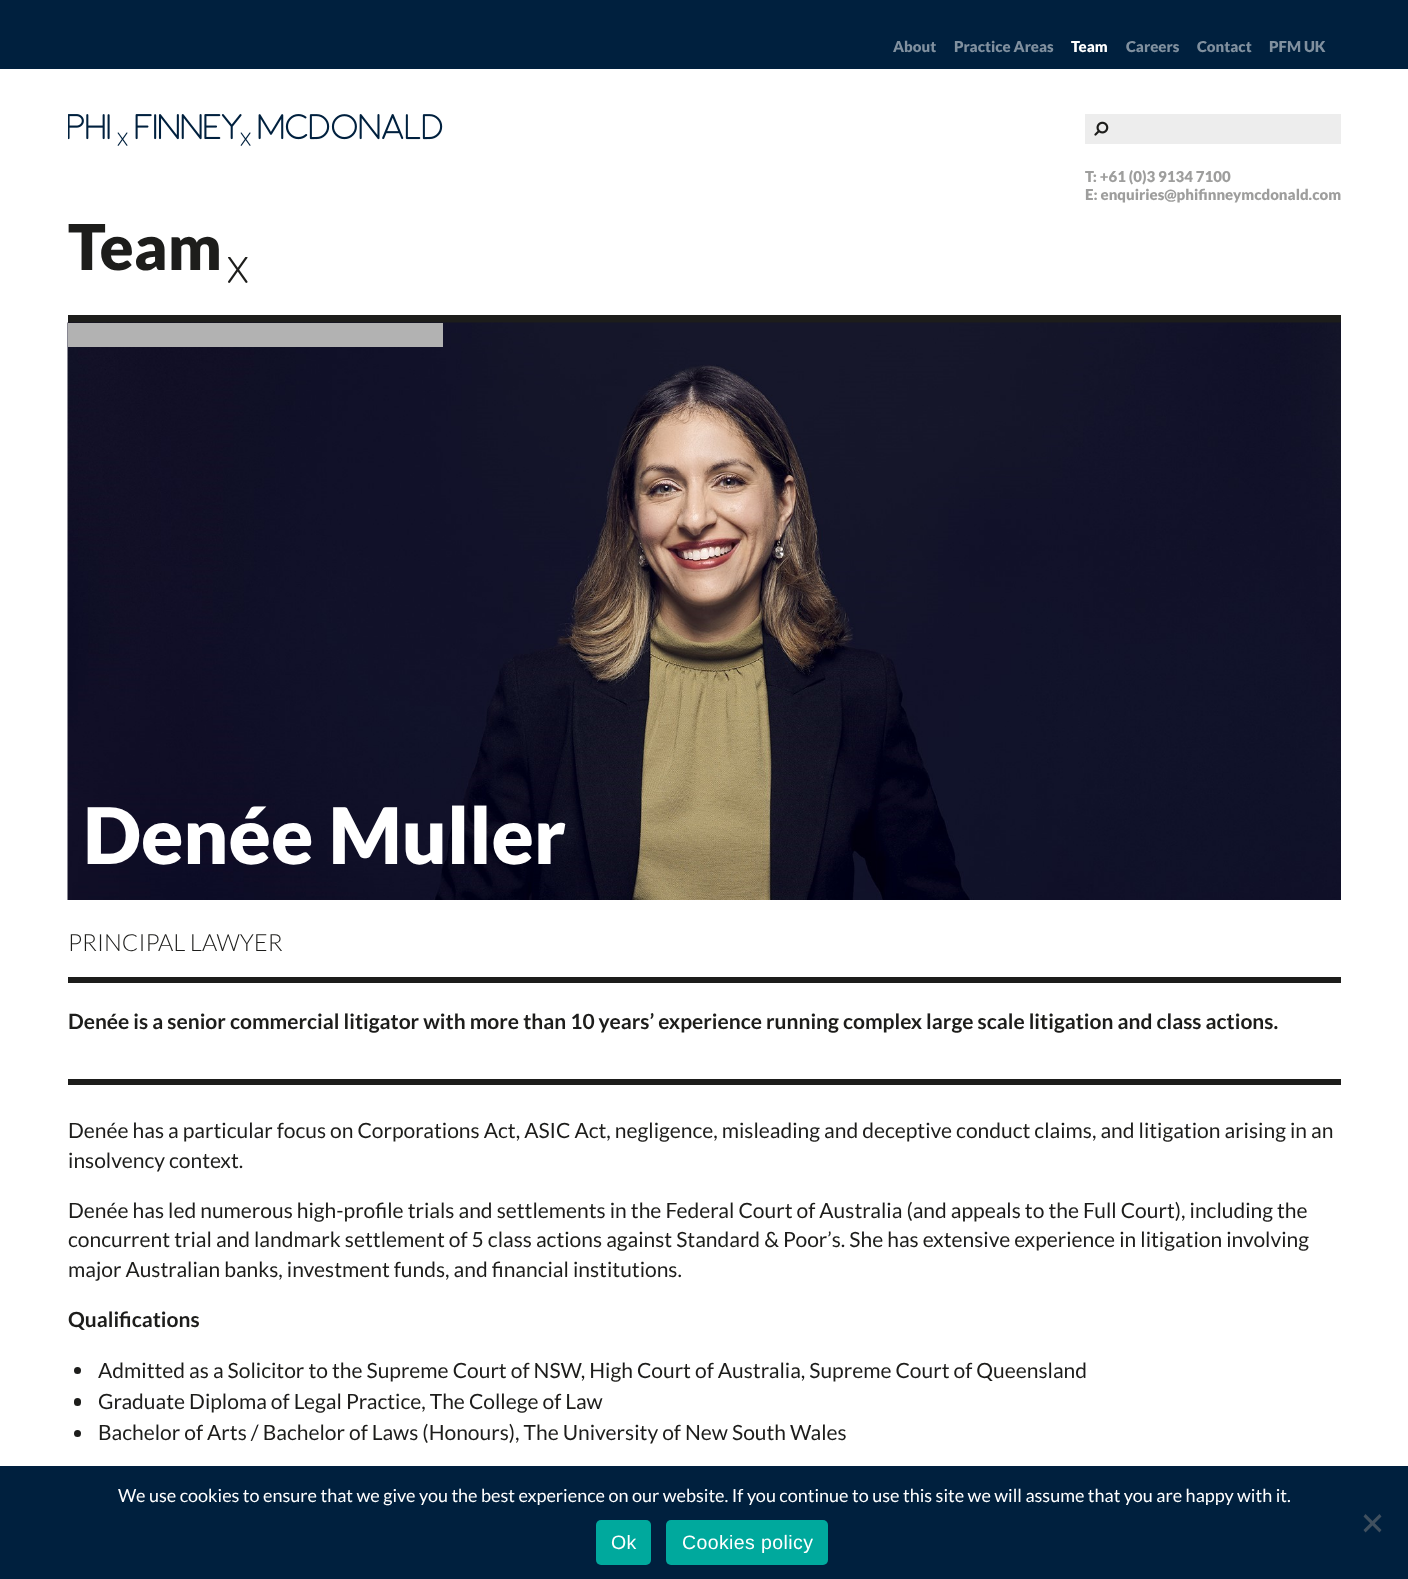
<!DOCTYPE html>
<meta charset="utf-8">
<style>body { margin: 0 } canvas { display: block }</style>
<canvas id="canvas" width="1408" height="1579"></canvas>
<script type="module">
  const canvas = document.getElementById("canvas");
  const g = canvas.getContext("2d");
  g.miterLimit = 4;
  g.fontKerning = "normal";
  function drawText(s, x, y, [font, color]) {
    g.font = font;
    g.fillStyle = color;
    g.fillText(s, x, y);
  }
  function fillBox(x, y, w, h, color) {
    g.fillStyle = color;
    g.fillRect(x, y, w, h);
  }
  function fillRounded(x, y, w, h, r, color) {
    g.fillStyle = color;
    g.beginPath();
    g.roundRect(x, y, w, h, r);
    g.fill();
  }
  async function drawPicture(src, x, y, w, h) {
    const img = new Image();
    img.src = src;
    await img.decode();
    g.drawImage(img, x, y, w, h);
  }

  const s1 = ["900 15px Lato", "#80909F"];
  const s2 = ["900 15px Lato", "#FFFFFF"];
  const s3 = ["900 15px Lato", "#9E9E9D"];
  const s4 = ["900 63px Lato", "#1D1D1B"];
  const s5 = ["900 78px Lato", "#FFFFFF"];
  const s6 = ["300 23.6px Lato", "#1D1D1B"];
  const s7 = ["bold 21px Lato", "#1D1D1B"];
  const s8 = ["21px Lato", "#1D1D1B"];
  const s9 = ["18px Lato", "#FFFFFF"];
  const s10 = ["19.5px Liberation Sans", "#FFFFFF"];

  fillBox(0, 0, 1408, 1579, "#FFFFFF");
  fillBox(0, 0, 1408, 69, "#00203E");
  drawText("About", 893, 52, s1);
  drawText("Practice Areas", 954, 52, s1);
  drawText("Team", 1071, 52, s2);
  drawText("Careers", 1126, 52, s1);
  drawText("Contact", 1197, 52, s1);
  drawText("PFM UK", 1269, 52, s1);
  await drawPicture("pic1.png", 68, 114, 375, 32);
  fillBox(1085, 114, 256, 30, "#EDEDED");
  await drawPicture("pic2.png", 1094, 121, 15, 15);
  drawText("T: +61 (0)3 9134 7100", 1085, 182, s3);
  drawText("E: enquiries@phifinneymcdonald.com", 1085, 200, s3);
  drawText("Team", 68, 270, s4);
  await drawPicture("pic3.png", 228, 257, 20, 26);
  fillBox(68, 315, 1273, 8, "#1D1D1B");
  await drawPicture("pic4.png", 67, 322, 1274, 578);
  fillBox(68, 323, 375, 24, "#B2B2B2");
  drawText("Denée Muller", 83, 864, s5);
  fillBox(68, 977, 1273, 6, "#1D1D1B");
  drawText("PRINCIPAL LAWYER", 68, 951, s6);
  fillBox(68, 1079, 1273, 6, "#1D1D1B");
  drawText("Denée is a senior commercial litigator with more than 10 years’ experience running complex large scale litigation and class actions.", 68, 1029, s7);
  drawText("Denée has a particular focus on Corporations Act, ASIC Act, negligence, misleading and deceptive conduct claims, and litigation arising in an", 68, 1138, s8);
  drawText("insolvency context.", 68, 1168, s8);
  drawText("Denée has led numerous high-profile trials and settlements in the Federal Court of Australia (and appeals to the Full Court), including the", 68, 1218, s8);
  drawText("concurrent trial and landmark settlement of 5 class actions against Standard & Poor’s. She has extensive experience in litigation involving", 68, 1247, s8);
  drawText("major Australian banks, investment funds, and financial institutions.", 68, 1277, s8);
  drawText("Qualifications", 68, 1327, s7);
  g.beginPath();
  g.arc(77.5, 1370.5, 3.5, 0, Math.PI * 2);
  g.fill();
  drawText("Admitted as a Solicitor to the Supreme Court of NSW, High Court of Australia, Supreme Court of Queensland", 98, 1378, s8);
  fillRounded(74, 1398, 7, 8, 3.5, "#1D1D1B");
  drawText("Graduate Diploma of Legal Practice, The College of Law", 98, 1409, s8);
  g.beginPath();
  g.arc(77.5, 1433.5, 3.5, 0, Math.PI * 2);
  g.fill();
  drawText("Bachelor of Arts / Bachelor of Laws (Honours), The University of New South Wales", 98, 1440, s8);
  fillBox(0, 1466, 1408, 113, "#00203E");
  drawText("We use cookies to ensure that we give you the best experience on our website. If you continue to use this site we will assume that you are happy with it.", 118, 1502, s9);
  g.fillStyle = "#40505F";
  g.beginPath();
  g.moveTo(1379.5, 1514);
  g.lineTo(1381.5, 1516.5);
  g.lineTo(1365.5, 1532.5);
  g.lineTo(1363.5, 1530);
  g.closePath();
  g.fill();
  g.beginPath();
  g.moveTo(1363.5, 1516.5);
  g.lineTo(1365.5, 1514);
  g.lineTo(1381.5, 1530);
  g.lineTo(1379.5, 1532.5);
  g.closePath();
  g.fill();
  fillRounded(596, 1520, 55, 45, 5, "#00A99D");
  g.letterSpacing = "0.4px";
  drawText("Ok", 611, 1549, s10);
  fillRounded(666, 1520, 162, 45, 5, "#00A99D");
  drawText("Cookies policy", 682, 1549, s10);
</script>
